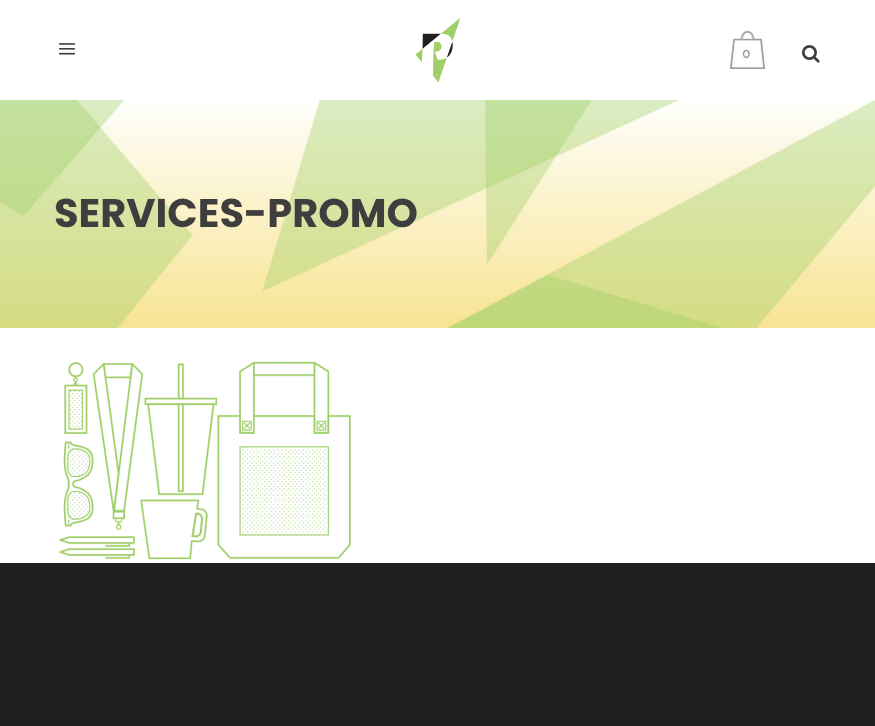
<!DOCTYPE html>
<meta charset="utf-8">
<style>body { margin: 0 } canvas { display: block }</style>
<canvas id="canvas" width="875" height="726"></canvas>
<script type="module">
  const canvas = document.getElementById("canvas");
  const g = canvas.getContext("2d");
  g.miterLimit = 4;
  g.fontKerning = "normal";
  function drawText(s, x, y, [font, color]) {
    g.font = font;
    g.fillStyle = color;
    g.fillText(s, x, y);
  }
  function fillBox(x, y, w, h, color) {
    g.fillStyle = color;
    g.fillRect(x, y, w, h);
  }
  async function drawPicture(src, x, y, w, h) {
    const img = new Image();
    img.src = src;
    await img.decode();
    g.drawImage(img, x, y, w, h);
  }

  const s1 = ["600 14px Raleway", "#9D9D9D"];
  const s2 = ["bold 40px Poppins", "#3E3E3E"];

  fillBox(0, 0, 875, 726, "#FFFFFF");
  await drawPicture("pic1.png", 58, 43, 18, 12);
  await drawPicture("pic2.png", 415, 17, 46, 66);
  await drawPicture("pic3.png", 730, 31, 35, 38);
  drawText("0", 742, 58, s1);
  await drawPicture("pic4.png", 802, 45, 18, 18);
  await drawPicture("pic5.png", 0, 100, 875, 228);
  drawText("SERVICES-PROMO", 54, 227, s2);
  await drawPicture("pic6.png", 59, 361, 292, 199);
  fillBox(0, 563, 875, 163, "#1E1E1E");
</script>
